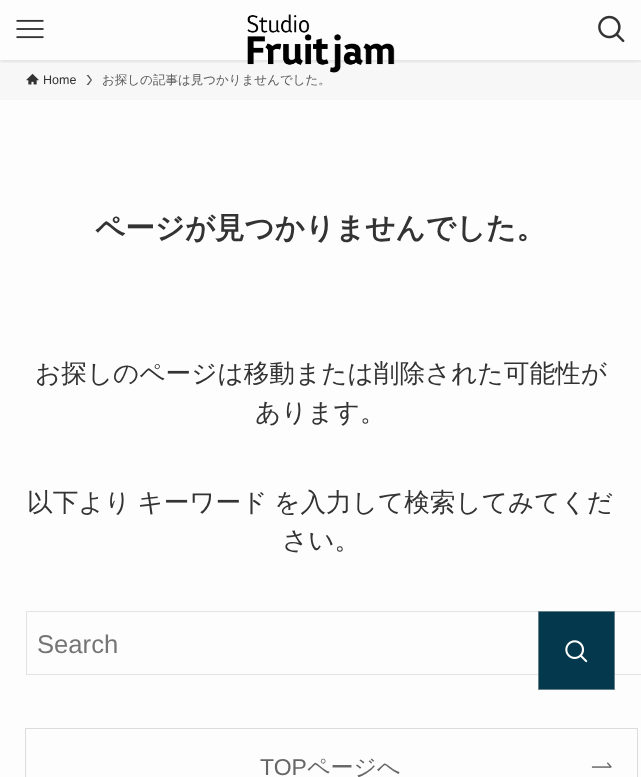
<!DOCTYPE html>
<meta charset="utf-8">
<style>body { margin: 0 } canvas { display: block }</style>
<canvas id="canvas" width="641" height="777"></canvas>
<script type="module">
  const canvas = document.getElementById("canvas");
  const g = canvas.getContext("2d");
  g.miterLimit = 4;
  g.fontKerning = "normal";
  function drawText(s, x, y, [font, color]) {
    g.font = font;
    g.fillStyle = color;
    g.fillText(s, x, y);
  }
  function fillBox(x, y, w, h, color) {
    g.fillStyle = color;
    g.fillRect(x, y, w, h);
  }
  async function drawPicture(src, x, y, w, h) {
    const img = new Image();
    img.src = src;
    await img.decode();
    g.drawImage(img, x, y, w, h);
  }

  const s1 = ["12.5px Liberation Sans", "#333333"];
  const s2 = ["500 12.5px WenQuanYi Zen Hei", "#5A5A5A"];
  const s3 = ["bold 29.5px WenQuanYi Zen Hei", "#333333"];
  const s4 = ["500 25.65px WenQuanYi Zen Hei", "#333333"];
  const s5 = ["25.65px Liberation Sans", "#757575"];
  const s6 = ["23px Liberation Sans", "#666666"];
  const s7 = ["500 23px WenQuanYi Zen Hei", "#666666"];

  fillBox(0, 0, 641, 777, "#FDFDFD");
  fillBox(0, 60, 641, 40, "#F7F7F7");
  g.save();
  g.beginPath();
  g.rect(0, 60, 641, 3);
  g.clip();
  g.fillStyle = "rgba(0, 0, 0, 0.12)";
  g.filter = "blur(2.5px)";
  g.beginPath();
  g.rect(0, 1, 641, 60);
  g.fill();
  g.filter = "none";
  g.restore();
  await drawPicture("pic1.png", 16, 19, 28, 20);
  await drawPicture("pic2.png", 247, 14, 148, 59);
  await drawPicture("pic3.png", 598, 15, 27, 28);
  await drawPicture("pic4.png", 26, 73, 13, 12);
  drawText("Home", 43, 84, s1);
  g.fillStyle = "#5A5A5A";
  g.beginPath();
  g.moveTo(88.5, 75);
  g.lineTo(86.5, 75);
  g.lineTo(90.5, 80);
  g.lineTo(86.5, 85);
  g.lineTo(88.5, 85);
  g.lineTo(92, 80);
  g.closePath();
  g.fill();
  drawText("お探しの記事は見つかりませんでした。", 102, 84, s2);
  drawText("ページが見つかりませんでした。", 95, 238, s3);
  drawText("お探しのページは移動または削除された可能性が", 35, 382, s4);
  drawText("あります。", 255, 421, s4);
  g.wordSpacing = "-1px";
  drawText("以下より キーワード を入力して検索してみてくだ", 27, 511, s4);
  g.wordSpacing = "0px";
  drawText("さい。", 282, 549, s4);
  g.strokeStyle = "#E3E3E3";
  g.strokeRect(26.5, 611.5, 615, 63);
  drawText("Search", 37, 653, s5);
  g.fillStyle = "#04384C";
  g.beginPath();
  g.rect(538.5, 611.5, 76, 78);
  g.fill();
  g.strokeStyle = "#66808A";
  g.stroke();
  await drawPicture("pic5.png", 565, 640, 23, 23);
  g.strokeStyle = "#DCDCDC";
  g.strokeRect(25.5, 728.5, 612, 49);
  drawText("TOP", 260, 775, s6);
  drawText("ページへ", 307, 775, s7);
  await drawPicture("pic6.png", 591, 762, 21, 6);
</script>
